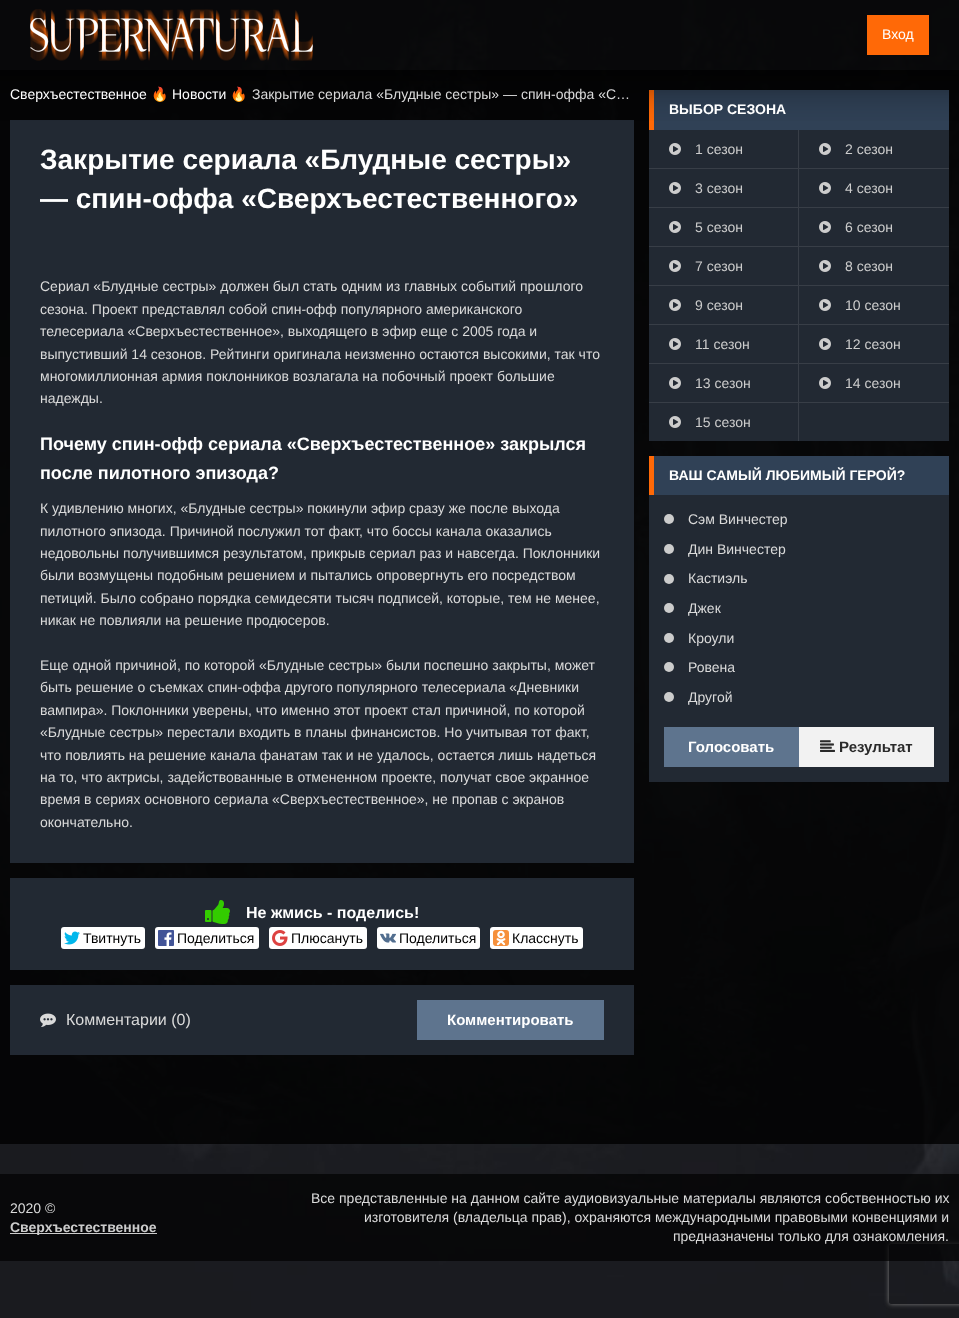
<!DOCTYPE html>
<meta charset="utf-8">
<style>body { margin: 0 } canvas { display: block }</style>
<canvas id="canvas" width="959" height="1318"></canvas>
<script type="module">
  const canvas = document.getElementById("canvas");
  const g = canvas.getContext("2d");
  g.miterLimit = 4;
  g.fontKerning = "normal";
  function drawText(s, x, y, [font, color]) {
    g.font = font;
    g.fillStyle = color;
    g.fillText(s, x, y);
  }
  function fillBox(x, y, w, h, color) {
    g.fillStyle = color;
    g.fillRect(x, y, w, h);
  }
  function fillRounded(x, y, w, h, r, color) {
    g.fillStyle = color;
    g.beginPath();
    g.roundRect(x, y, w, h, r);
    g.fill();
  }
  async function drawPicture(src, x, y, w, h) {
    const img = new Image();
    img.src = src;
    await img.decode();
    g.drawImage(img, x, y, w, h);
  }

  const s1 = ["14px Liberation Sans", "#FFFFFF"];
  const s2 = ["14px Noto Color Emoji", "#DADADA"];
  const s3 = ["14px Liberation Sans", "#DADADA"];
  const s4 = ["bold 28px Liberation Sans", "#FFFFFF"];
  const s5 = ["bold 18px Liberation Sans", "#FFFFFF"];
  const s6 = ["bold 16px Liberation Sans", "#FFFFFF"];
  const s7 = ["14px Liberation Sans", "#000000"];
  const s8 = ["16px Liberation Sans", "#DADADA"];
  const s9 = ["bold 15px Liberation Sans", "#FFFFFF"];
  const s10 = ["bold 14px Liberation Sans", "#FFFFFF"];
  const s11 = ["14px Liberation Sans", "#CCCCCC"];
  const s12 = ["bold 15px Liberation Sans", "#2A2A2A"];
  const s13 = ["bold 14px Liberation Sans", "#CCCCCC"];

  fillBox(0, 0, 959, 1318, "#FFFFFF");
  await drawPicture("pic1.png", 0, 0, 959, 1318);
  fillBox(0, 70, 959, 1074, "rgba(0, 0, 0, 0.8)");
  fillBox(10, 120, 624, 743, "#222933");
  fillBox(649, 130, 300, 311, "#222933");
  fillBox(654, 90, 295, 40, "#304156");
  fillBox(649, 90, 5, 40, "#FF6907");
  g.fillStyle = "#383E47";
  g.beginPath();
  g.moveTo(799, 130);
  g.lineTo(799, 169);
  g.lineTo(798, 168);
  g.lineTo(798, 130);
  g.closePath();
  g.fill();
  await drawPicture("pic10.png", 669, 143, 12, 12);
  await drawPicture("pic10.png", 819, 143, 12, 12);
  g.save();
  g.beginPath();
  g.rect(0, 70, 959, 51);
  g.clip();
  g.fillStyle = "#000000";
  g.filter = "blur(25px)";
  g.beginPath();
  g.rect(-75, 0, 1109, 70);
  g.fill();
  g.filter = "none";
  g.restore();
  fillBox(0, 0, 959, 70, "rgba(0, 0, 0, 0.68)");
  await drawPicture("pic2.png", 30, 9, 283, 52);
  fillBox(867, 15, 62, 40, "#FF6907");
  drawText("Вход", 882, 39, s1);
  drawText("Сверхъестественное", 10, 99, s1);
  drawText("🔥", 151, 99, s2);
  drawText("Новости", 172, 99, s1);
  drawText("🔥", 230, 99, s2);
  drawText("Закрытие сериала «Блудные сестры» — спин-оффа «С…", 252, 99, s3);
  drawText("Закрытие сериала «Блудные сестры»", 40, 169, s4);
  drawText("— спин-оффа «Сверхъестественного»", 40, 208, s4);
  drawText("Сериал «Блудные сестры» должен был стать одним из главных событий прошлого", 40, 291, s3);
  drawText("сезона. Проект представлял собой спин-офф популярного американского", 40, 314, s3);
  drawText("телесериала «Сверхъестественное», выходящего в эфир еще с 2005 года и", 40, 336, s3);
  drawText("выпустивший 14 сезонов. Рейтинги оригинала неизменно остаются высокими, так что", 40, 359, s3);
  drawText("многомиллионная армия поклонников возлагала на побочный проект большие", 40, 381, s3);
  drawText("надежды.", 40, 403, s3);
  drawText("Почему спин-офф сериала «Сверхъестественное» закрылся", 40, 450, s5);
  drawText("после пилотного эпизода?", 40, 479, s5);
  drawText("К удивлению многих, «Блудные сестры» покинули эфир сразу же после выхода", 40, 513, s3);
  drawText("пилотного эпизода. Причиной послужил тот факт, что боссы канала оказались", 40, 536, s3);
  drawText("недовольны получившимся результатом, прикрыв сериал раз и навсегда. Поклонники", 40, 558, s3);
  drawText("были возмущены подобным решением и пытались опровергнуть его посредством", 40, 580, s3);
  drawText("петиций. Было собрано порядка семидесяти тысяч подписей, которые, тем не менее,", 40, 603, s3);
  drawText("никак не повлияли на решение продюсеров.", 40, 625, s3);
  drawText("Еще одной причиной, по которой «Блудные сестры» были поспешно закрыты, может", 40, 670, s3);
  drawText("быть решение о съемках спин-оффа другого популярного телесериала «Дневники", 40, 692, s3);
  drawText("вампира». Поклонники уверены, что именно этот проект стал причиной, по которой", 40, 715, s3);
  drawText("«Блудные сестры» перестали входить в планы финансистов. Но учитывая тот факт,", 40, 737, s3);
  drawText("что повлиять на решение канала фанатам так и не удалось, остается лишь надеться", 40, 760, s3);
  drawText("на то, что актрисы, задействованные в отмененном проекте, получат свое экранное", 40, 782, s3);
  drawText("время в сериях основного сериала «Сверхъестественное», не пропав с экранов", 40, 804, s3);
  drawText("окончательно.", 40, 827, s3);
  fillBox(10, 878, 624, 92, "#222933");
  await drawPicture("pic3.png", 205, 900, 25, 24);
  drawText("Не жмись - поделись!", 246, 918, s6);
  fillRounded(61, 927, 84, 22, 3, "#FFFFFF");
  await drawPicture("pic4.png", 64, 931, 16, 14);
  drawText("Твитнуть", 83, 943, s7);
  fillRounded(155, 927, 104, 22, 3, "#FFFFFF");
  await drawPicture("pic5.png", 158, 930, 16, 16);
  drawText("Поделиться", 177, 943, s7);
  fillRounded(269, 927, 98, 22, 3, "#FFFFFF");
  await drawPicture("pic6.png", 272, 930, 16, 16);
  drawText("Плюсануть", 291, 943, s7);
  fillRounded(377, 927, 103, 22, 3, "#FFFFFF");
  await drawPicture("pic7.png", 380, 933, 16, 10);
  drawText("Поделиться", 399, 943, s7);
  fillRounded(490, 927, 93, 22, 3, "#FFFFFF");
  await drawPicture("pic8.png", 493, 930, 16, 16);
  drawText("Класснуть", 512, 943, s7);
  fillBox(10, 985, 624, 70, "#222933");
  await drawPicture("pic9.png", 40, 1013, 16, 14);
  drawText("Комментарии (0)", 66, 1025, s8);
  fillBox(417, 1000, 187, 40, "#5E748E");
  drawText("Комментировать", 447, 1025, s9);
  drawText("ВЫБОР СЕЗОНА", 669, 114, s10);
  g.fillStyle = "rgba(255, 255, 255, 0.1)";
  g.beginPath();
  g.moveTo(799, 169);
  g.lineTo(649, 169);
  g.lineTo(649, 168);
  g.lineTo(798, 168);
  g.closePath();
  g.fill();
  drawText("1 сезон", 695, 154, s11);
  fillBox(799, 168, 150, 1, "#383E47");
  drawText("2 сезон", 845, 154, s11);
  g.fillStyle = "#383E47";
  g.beginPath();
  g.moveTo(799, 169);
  g.lineTo(799, 208);
  g.lineTo(798, 207);
  g.lineTo(798, 169);
  g.closePath();
  g.fill();
  g.fillStyle = "rgba(255, 255, 255, 0.1)";
  g.beginPath();
  g.moveTo(799, 208);
  g.lineTo(649, 208);
  g.lineTo(649, 207);
  g.lineTo(798, 207);
  g.closePath();
  g.fill();
  await drawPicture("pic10.png", 669, 182, 12, 12);
  drawText("3 сезон", 695, 193, s11);
  fillBox(799, 207, 150, 1, "#383E47");
  await drawPicture("pic10.png", 819, 182, 12, 12);
  drawText("4 сезон", 845, 193, s11);
  g.fillStyle = "#383E47";
  g.beginPath();
  g.moveTo(799, 208);
  g.lineTo(799, 247);
  g.lineTo(798, 246);
  g.lineTo(798, 208);
  g.closePath();
  g.fill();
  g.fillStyle = "rgba(255, 255, 255, 0.1)";
  g.beginPath();
  g.moveTo(799, 247);
  g.lineTo(649, 247);
  g.lineTo(649, 246);
  g.lineTo(798, 246);
  g.closePath();
  g.fill();
  await drawPicture("pic10.png", 669, 221, 12, 12);
  drawText("5 сезон", 695, 232, s11);
  fillBox(799, 246, 150, 1, "#383E47");
  await drawPicture("pic10.png", 819, 221, 12, 12);
  drawText("6 сезон", 845, 232, s11);
  g.fillStyle = "#383E47";
  g.beginPath();
  g.moveTo(799, 247);
  g.lineTo(799, 286);
  g.lineTo(798, 285);
  g.lineTo(798, 247);
  g.closePath();
  g.fill();
  g.fillStyle = "rgba(255, 255, 255, 0.1)";
  g.beginPath();
  g.moveTo(799, 286);
  g.lineTo(649, 286);
  g.lineTo(649, 285);
  g.lineTo(798, 285);
  g.closePath();
  g.fill();
  await drawPicture("pic10.png", 669, 260, 12, 12);
  drawText("7 сезон", 695, 271, s11);
  fillBox(799, 285, 150, 1, "#383E47");
  await drawPicture("pic10.png", 819, 260, 12, 12);
  drawText("8 сезон", 845, 271, s11);
  g.fillStyle = "#383E47";
  g.beginPath();
  g.moveTo(799, 286);
  g.lineTo(799, 325);
  g.lineTo(798, 324);
  g.lineTo(798, 286);
  g.closePath();
  g.fill();
  g.fillStyle = "rgba(255, 255, 255, 0.1)";
  g.beginPath();
  g.moveTo(799, 325);
  g.lineTo(649, 325);
  g.lineTo(649, 324);
  g.lineTo(798, 324);
  g.closePath();
  g.fill();
  await drawPicture("pic10.png", 669, 299, 12, 12);
  drawText("9 сезон", 695, 310, s11);
  fillBox(799, 324, 150, 1, "#383E47");
  await drawPicture("pic10.png", 819, 299, 12, 12);
  drawText("10 сезон", 845, 310, s11);
  g.fillStyle = "#383E47";
  g.beginPath();
  g.moveTo(799, 325);
  g.lineTo(799, 364);
  g.lineTo(798, 363);
  g.lineTo(798, 325);
  g.closePath();
  g.fill();
  g.fillStyle = "rgba(255, 255, 255, 0.1)";
  g.beginPath();
  g.moveTo(799, 364);
  g.lineTo(649, 364);
  g.lineTo(649, 363);
  g.lineTo(798, 363);
  g.closePath();
  g.fill();
  await drawPicture("pic10.png", 669, 338, 12, 12);
  drawText("11 сезон", 695, 349, s11);
  fillBox(799, 363, 150, 1, "#383E47");
  await drawPicture("pic10.png", 819, 338, 12, 12);
  drawText("12 сезон", 845, 349, s11);
  g.fillStyle = "#383E47";
  g.beginPath();
  g.moveTo(799, 364);
  g.lineTo(799, 403);
  g.lineTo(798, 402);
  g.lineTo(798, 364);
  g.closePath();
  g.fill();
  g.fillStyle = "rgba(255, 255, 255, 0.1)";
  g.beginPath();
  g.moveTo(799, 403);
  g.lineTo(649, 403);
  g.lineTo(649, 402);
  g.lineTo(798, 402);
  g.closePath();
  g.fill();
  await drawPicture("pic10.png", 669, 377, 12, 12);
  drawText("13 сезон", 695, 388, s11);
  fillBox(799, 402, 150, 1, "#383E47");
  await drawPicture("pic10.png", 819, 377, 12, 12);
  drawText("14 сезон", 845, 388, s11);
  fillBox(798, 403, 1, 38, "#383E47");
  await drawPicture("pic10.png", 669, 416, 12, 12);
  drawText("15 сезон", 695, 427, s11);
  fillBox(649, 495, 300, 287, "#222933");
  fillBox(654, 456, 295, 39, "#304156");
  fillBox(649, 456, 5, 39, "#FF6907");
  drawText("ВАШ САМЫЙ ЛЮБИМЫЙ ГЕРОЙ?", 669, 480, s10);
  g.fillStyle = "#CCCCCC";
  g.beginPath();
  g.arc(669, 519, 5, 0, Math.PI * 2);
  g.fill();
  drawText("Сэм Винчестер", 688, 524, s3);
  g.fillStyle = "#CCCCCC";
  g.beginPath();
  g.arc(669, 549, 5, 0, Math.PI * 2);
  g.fill();
  drawText("Дин Винчестер", 688, 554, s3);
  g.fillStyle = "#CCCCCC";
  g.beginPath();
  g.arc(669, 579, 5, 0, Math.PI * 2);
  g.fill();
  drawText("Кастиэль", 688, 583, s3);
  g.fillStyle = "#CCCCCC";
  g.beginPath();
  g.arc(669, 608, 5, 0, Math.PI * 2);
  g.fill();
  drawText("Джек", 688, 613, s3);
  g.fillStyle = "#CCCCCC";
  g.beginPath();
  g.arc(669, 638, 5, 0, Math.PI * 2);
  g.fill();
  drawText("Кроули", 688, 643, s3);
  g.fillStyle = "#CCCCCC";
  g.beginPath();
  g.arc(669, 667, 5, 0, Math.PI * 2);
  g.fill();
  drawText("Ровена", 688, 672, s3);
  g.fillStyle = "#CCCCCC";
  g.beginPath();
  g.arc(669, 697, 5, 0, Math.PI * 2);
  g.fill();
  drawText("Другой", 688, 702, s3);
  fillBox(664, 727, 135, 40, "#5E748E");
  drawText("Голосовать", 688, 752, s9);
  fillBox(799, 727, 135, 40, "#F2F2F2");
  await drawPicture("pic11.png", 820, 740, 15, 12);
  drawText("Результат", 839, 752, s12);
  g.save();
  g.beginPath();
  g.moveTo(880, 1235);
  g.lineTo(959, 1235);
  g.lineTo(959, 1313);
  g.lineTo(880, 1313);
  g.closePath();
  g.moveTo(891, 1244);
  g.lineTo(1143, 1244);
  g.bezierCurveTo(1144, 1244, 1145, 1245, 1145, 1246);
  g.lineTo(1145, 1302);
  g.bezierCurveTo(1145, 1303, 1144, 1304, 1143, 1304);
  g.lineTo(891, 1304);
  g.bezierCurveTo(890, 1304, 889, 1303, 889, 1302);
  g.lineTo(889, 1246);
  g.bezierCurveTo(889, 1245, 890, 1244, 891, 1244);
  g.closePath();
  g.clip("evenodd");
  g.fillStyle = "#808080";
  g.filter = "blur(2.5px)";
  g.beginPath();
  g.roundRect(889, 1244, 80, 60, 2);
  g.fill();
  g.filter = "none";
  g.restore();
  fillBox(0, 1174, 959, 87, "rgba(0, 0, 0, 0.68)");
  drawText("2020 ©", 10, 1213, s3);
  fillBox(10, 1233, 147, 1, "#CCCCCC");
  drawText("Сверхъестественное", 10, 1232, s13);
  drawText("Все представленные на данном сайте аудиовизуальные материалы являются собственностью их", 311, 1203, s3);
  drawText("изготовителя (владельца прав), охраняются международными правовыми конвенциями и", 364, 1222, s3);
  drawText("предназначены только для ознакомления.", 673, 1241, s3);
</script>
